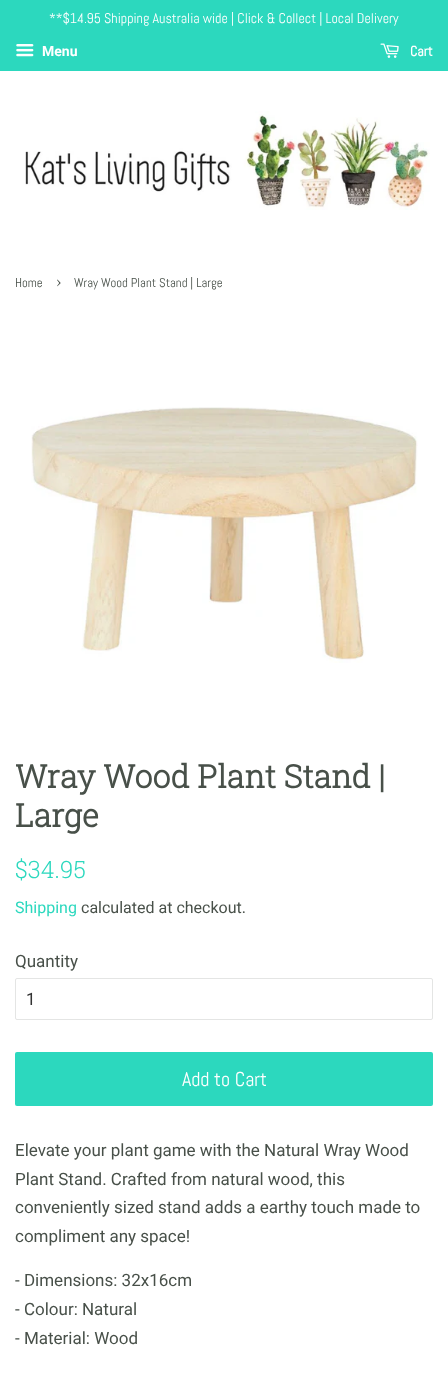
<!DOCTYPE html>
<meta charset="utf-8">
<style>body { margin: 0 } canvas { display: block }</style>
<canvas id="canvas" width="448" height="1377"></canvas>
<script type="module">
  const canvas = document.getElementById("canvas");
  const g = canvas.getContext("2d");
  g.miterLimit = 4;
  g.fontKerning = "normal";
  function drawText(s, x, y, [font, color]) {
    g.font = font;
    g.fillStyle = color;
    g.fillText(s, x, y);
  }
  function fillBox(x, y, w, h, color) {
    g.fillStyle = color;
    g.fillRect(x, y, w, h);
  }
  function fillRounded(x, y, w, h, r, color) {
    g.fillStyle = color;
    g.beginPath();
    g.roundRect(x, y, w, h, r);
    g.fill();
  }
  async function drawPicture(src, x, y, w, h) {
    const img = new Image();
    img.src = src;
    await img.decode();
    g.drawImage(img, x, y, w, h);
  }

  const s1 = ["14px Abel", "#FFFFFF"];
  const s2 = ["bold 14px Roboto", "#FFFFFF"];
  const s3 = ["bold 14px Abel", "#FFFFFF"];
  const s4 = ["12.75px Abel", "#485049"];
  const s5 = ["18px Abel", "#485049"];
  const s6 = ["bold 32px Roboto Slab", "#485049"];
  const s7 = ["300 24px Roboto Slab", "#2CD8BE"];
  const s8 = ["16px Roboto", "#2CD8BE"];
  const s9 = ["16px Roboto", "#485049"];
  const s10 = ["17px Roboto", "#485049"];
  const s11 = ["17px Roboto", "#333333"];
  const s12 = ["20px Abel", "#FFFFFF"];

  fillBox(0, 0, 448, 1377, "#FFFFFF");
  fillBox(0, 0, 448, 71, "#2CD8BE");
  drawText("**$14.95 Shipping Australia wide | Click & Collect | Local Delivery", 49, 23, s1);
  await drawPicture("pic1.png", 16, 44, 18, 13);
  drawText("Menu", 42, 56, s2);
  await drawPicture("pic2.png", 380, 43, 19, 15);
  drawText("Cart", 410, 56, s3);
  await drawPicture("pic3.png", 25, 111, 405, 99);
  drawText("Home", 15, 287, s4);
  drawText("›", 56, 287, s5);
  drawText("Wray Wood Plant Stand | Large", 74, 287, s4);
  await drawPicture("pic4.png", 31, 407, 387, 256);
  drawText("Wray Wood Plant Stand |", 15, 788, s6);
  drawText("Large", 15, 827, s6);
  drawText("$34.95", 15, 878, s7);
  drawText("Shipping", 15, 913, s8);
  drawText("calculated at checkout.", 81, 913, s9);
  drawText("Quantity", 15, 967, s10);
  g.beginPath();
  g.roundRect(15.5, 978.5, 417, 41, 1.5);
  g.strokeStyle = "#E4E5E4";
  g.stroke();
  drawText("1", 26, 1005, s11);
  fillRounded(15, 1052, 418, 54, 2, "#2CD8BE");
  drawText("Add to Cart", 182, 1086, s12);
  drawText("Elevate your plant game with the Natural Wray Wood", 15, 1156, s10);
  drawText("Plant Stand. Crafted from natural wood, this", 15, 1185, s10);
  drawText("conveniently sized stand adds a earthy touch made to", 15, 1213, s10);
  drawText("compliment any space!", 15, 1242, s10);
  drawText("- Dimensions: 32x16cm", 15, 1286, s10);
  drawText("- Colour: Natural", 15, 1315, s10);
  drawText("- Material: Wood", 15, 1344, s10);
</script>
